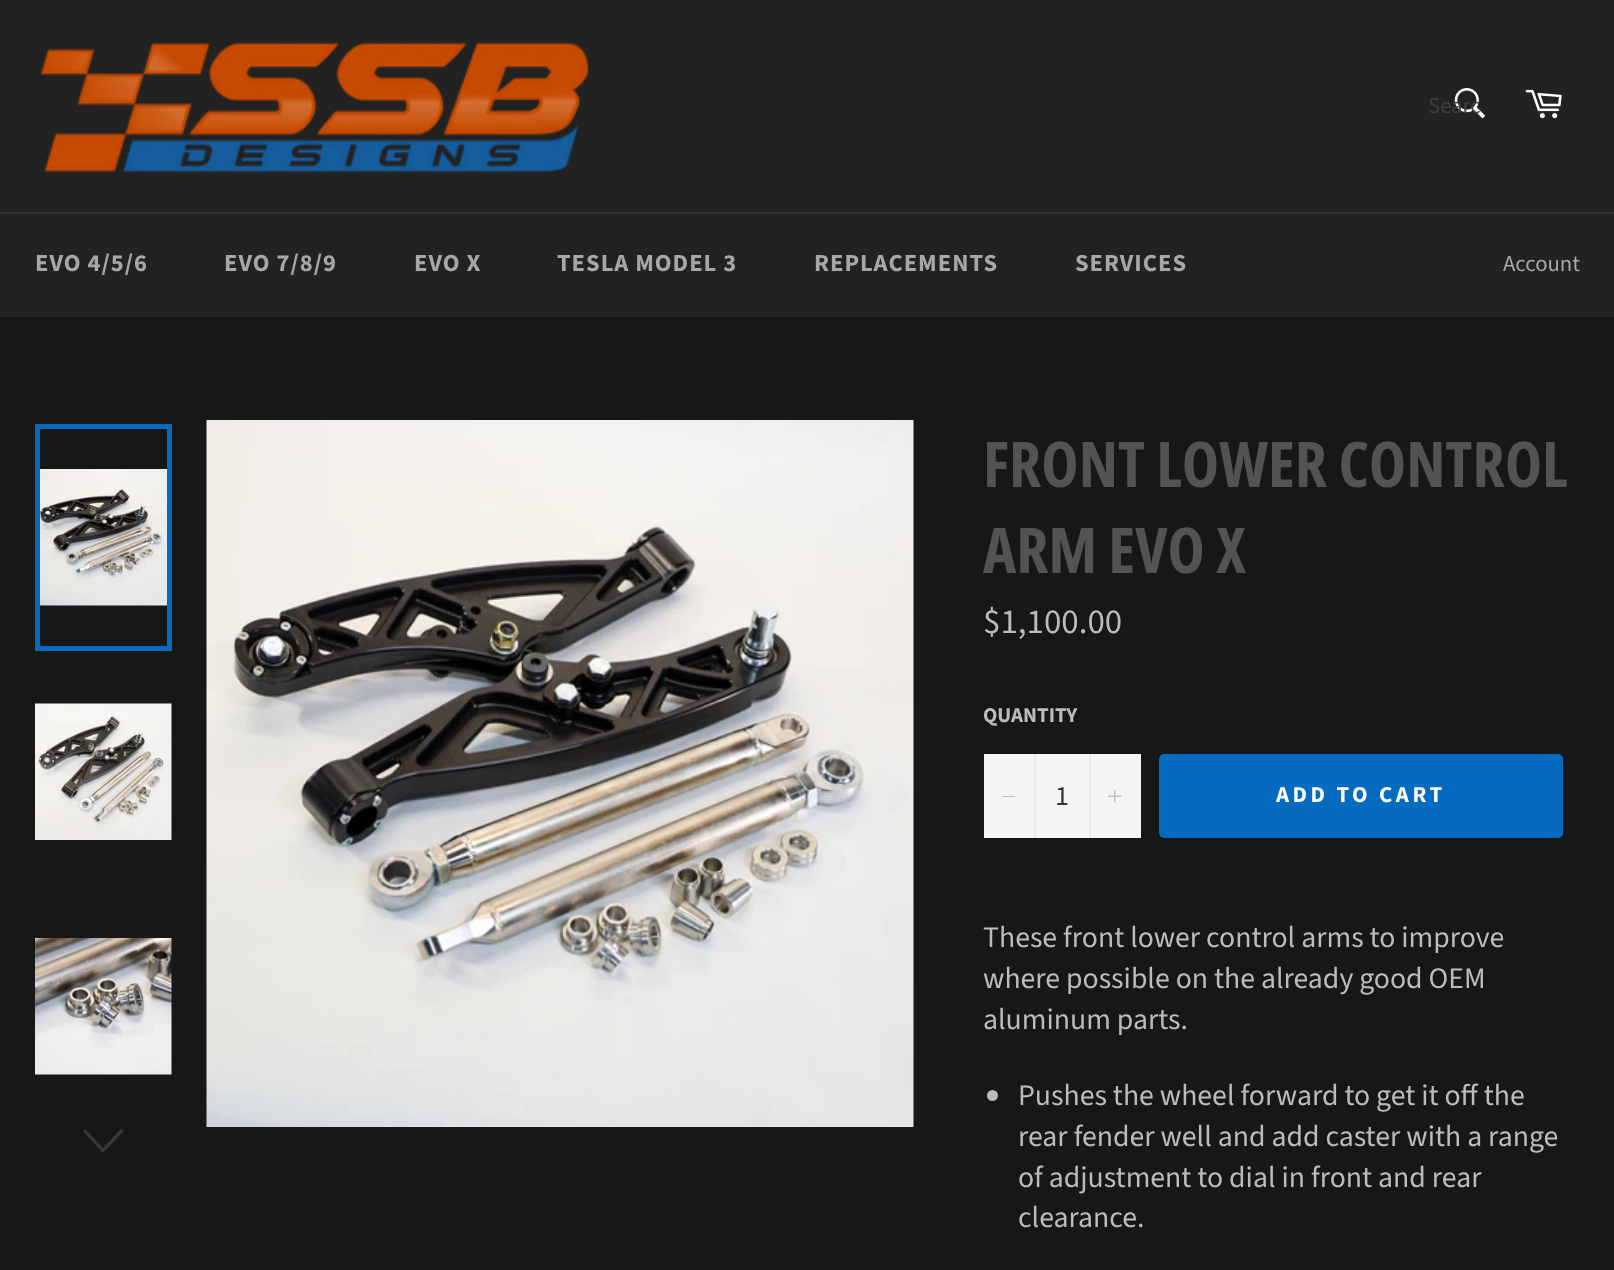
<!DOCTYPE html>
<meta charset="utf-8">
<style>body { margin: 0 } canvas { display: block }</style>
<canvas id="canvas" width="1614" height="1270"></canvas>
<script type="module">
  const canvas = document.getElementById("canvas");
  const g = canvas.getContext("2d");
  g.miterLimit = 4;
  g.fontKerning = "normal";
  function drawText(s, x, y, [font, color]) {
    g.font = font;
    g.fillStyle = color;
    g.fillText(s, x, y);
  }
  function fillBox(x, y, w, h, color) {
    g.fillStyle = color;
    g.fillRect(x, y, w, h);
  }
  function fillRounded(x, y, w, h, r, color) {
    g.fillStyle = color;
    g.beginPath();
    g.roundRect(x, y, w, h, r);
    g.fill();
  }
  async function drawPicture(src, x, y, w, h) {
    const img = new Image();
    img.src = src;
    await img.decode();
    g.drawImage(img, x, y, w, h);
  }

  const s1 = ["22.75px Source Sans Pro", "#404040"];
  const s2 = ["bold 24.5px Source Sans Pro", "#A7A7A7"];
  const s3 = ["22.75px Source Sans Pro", "#A7A7A7"];
  const s4 = ["bold 63px Open Sans Condensed", "#535353"];
  const s5 = ["35px Source Sans Pro", "#BCBCBC"];
  const s6 = ["bold 21px Source Sans Pro", "#BCBCBC"];
  const s7 = ["28px Source Sans Pro", "#333333"];
  const s8 = ["bold 22.75px Source Sans Pro", "#FFFFFF"];
  const s9 = ["29.75px Source Sans Pro", "#BCBCBC"];

  fillBox(0, 0, 1614, 1270, "#171717");
  fillBox(0, 0, 1614, 212, "#222222");
  await drawPicture("pic1.png", 40, 41, 549, 131);
  await drawPicture("pic2.png", 1454, 88, 32, 31);
  drawText("Searc", 1428, 113, s1);
  await drawPicture("pic3.png", 1525, 89, 37, 30);
  fillBox(0, 214, 1614, 103, "#222222");
  fillBox(0, 212, 1614, 2, "#2F2F2F");
  g.letterSpacing = "1px";
  drawText("EVO 4/5/6", 35, 271, s2);
  drawText("EVO 7/8/9", 224, 271, s2);
  drawText("EVO X", 414, 271, s2);
  drawText("TESLA MODEL 3", 557, 271, s2);
  drawText("REPLACEMENTS", 814, 271, s2);
  drawText("SERVICES", 1075, 271, s2);
  g.letterSpacing = "0px";
  drawText("Account", 1503, 271, s3);
  await drawPicture("pic4.png", 40, 469, 127, 137);
  g.strokeStyle = "#056BBF";
  g.lineWidth = 5;
  g.strokeRect(37.5, 426.5, 132, 222);
  await drawPicture("pic5.png", 35, 703, 137, 137);
  await drawPicture("pic6.png", 35, 938, 137, 137);
  g.fillStyle = "#383838";
  g.beginPath();
  g.moveTo(121, 1129);
  g.lineTo(124, 1131);
  g.lineTo(103, 1153);
  g.lineTo(83, 1131);
  g.lineTo(85, 1129);
  g.lineTo(103, 1148);
  g.closePath();
  g.fill();
  await drawPicture("pic7.png", 206, 420, 708, 707);
  drawText("FRONT LOWER CONTROL", 983, 487, s4);
  drawText("ARM EVO X", 983, 573, s4);
  drawText("$1,100.00", 983, 633, s5);
  drawText("QUANTITY", 983, 722, s6);
  fillBox(984, 754, 157, 84, "#F4F4F4");
  fillBox(1034, 754, 2, 84, "#E7E7E7");
  fillBox(1002, 796, 13, 1, "#BCBCBC");
  drawText("1", 1055, 805, s7);
  fillBox(1089, 754, 2, 84, "#E7E7E7");
  await drawPicture("pic8.png", 1108, 789, 14, 14);
  fillRounded(1159, 754, 404, 84, 5, "#056BBF");
  g.letterSpacing = "3.5px";
  drawText("ADD TO CART", 1276, 802, s8);
  g.letterSpacing = "0px";
  drawText("These front lower control arms to improve", 983, 947, s9);
  drawText("where possible on the already good OEM", 983, 988, s9);
  drawText("aluminum parts.", 983, 1029, s9);
  g.beginPath();
  g.arc(992.5, 1095.5, 5.5, 0, Math.PI * 2);
  g.fill();
  drawText("Pushes the wheel forward to get it off the", 1018, 1105, s9);
  drawText("rear fender well and add caster with a range", 1018, 1146, s9);
  drawText("of adjustment to dial in front and rear", 1018, 1187, s9);
  drawText("clearance.", 1018, 1227, s9);
</script>
